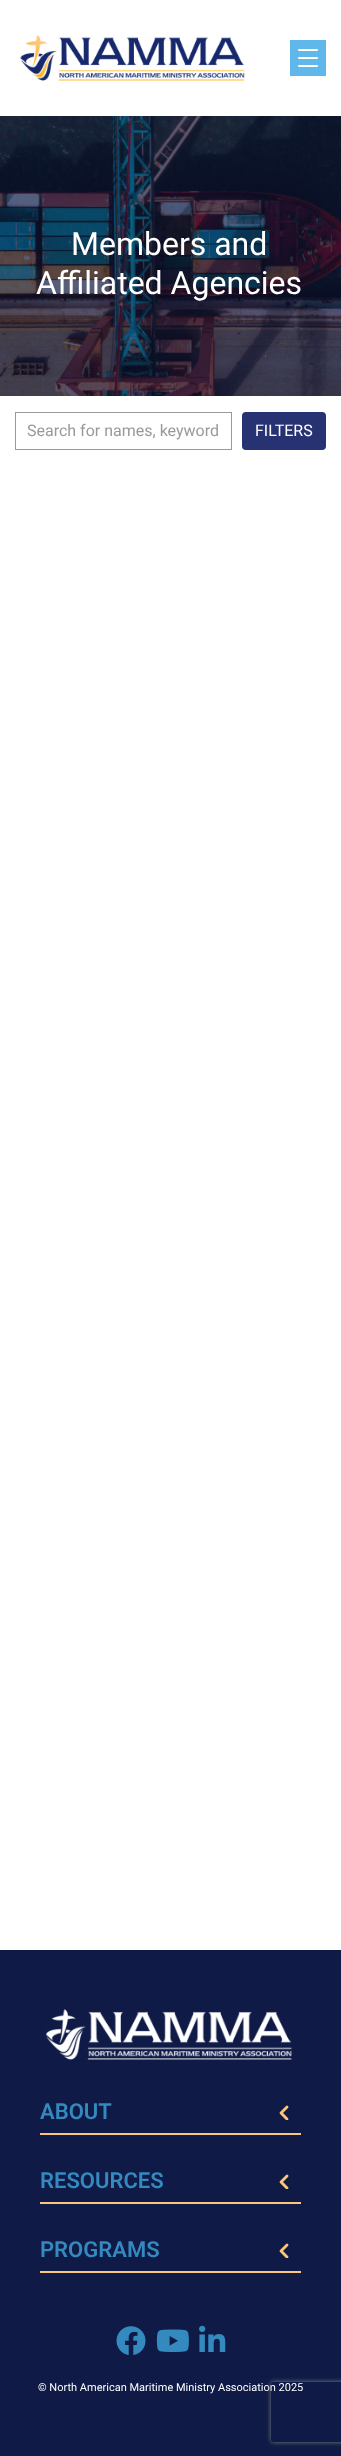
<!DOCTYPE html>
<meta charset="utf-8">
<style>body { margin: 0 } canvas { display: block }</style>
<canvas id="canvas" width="341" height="2456"></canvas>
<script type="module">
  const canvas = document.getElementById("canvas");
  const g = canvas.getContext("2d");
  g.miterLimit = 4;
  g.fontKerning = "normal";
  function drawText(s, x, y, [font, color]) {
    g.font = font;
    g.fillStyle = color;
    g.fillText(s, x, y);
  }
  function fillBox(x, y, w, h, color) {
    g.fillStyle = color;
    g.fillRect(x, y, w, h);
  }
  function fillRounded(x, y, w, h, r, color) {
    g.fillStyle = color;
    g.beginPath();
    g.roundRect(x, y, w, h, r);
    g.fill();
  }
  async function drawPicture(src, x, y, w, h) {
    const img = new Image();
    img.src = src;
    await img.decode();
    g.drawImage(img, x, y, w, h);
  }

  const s1 = ["32px Roboto", "#FFFFFF"];
  const s2 = ["16px Roboto", "#999999"];
  const s3 = ["16px Roboto", "#FFFFFF"];
  const s4 = ["600 22px Roboto", "#3489BE"];
  const s5 = ["11px Roboto", "#FFFFFF"];

  fillBox(0, 0, 341, 2456, "#FFFFFF");
  await drawPicture("pic1.png", 20, 35, 225, 46);
  fillBox(290, 40, 36, 36, "#60B7EA");
  fillRounded(298, 49, 20, 2, 1, "#FFFFFF");
  fillRounded(298, 57, 20, 2, 1, "#FFFFFF");
  fillRounded(298, 65, 20, 2, 1, "#FFFFFF");
  await drawPicture("pic2.png", 0, 116, 341, 280);
  drawText("Members and", 71, 255, s1);
  drawText("Affiliated Agencies", 36, 294, s1);
  g.strokeStyle = "#999999";
  g.strokeRect(15.5, 412.5, 216, 37);
  drawText("Search for names, keyword", 27, 436, s2);
  fillRounded(242, 412, 84, 38, 4, "#273272");
  drawText("FILTERS", 255, 436, s3);
  fillBox(0, 1950, 341, 506, "#0F1A46");
  await drawPicture("pic3.png", 46, 2009, 246, 51);
  fillBox(40, 2133, 261, 2, "#FDC579");
  drawText("ABOUT", 40, 2119, s4);
  await drawPicture("pic4.png", 279, 2105, 10, 15);
  fillBox(40, 2202, 261, 2, "#FDC579");
  drawText("RESOURCES", 40, 2188, s4);
  await drawPicture("pic4.png", 279, 2174, 10, 15);
  fillBox(40, 2271, 261, 2, "#FDC579");
  drawText("PROGRAMS", 40, 2257, s4);
  await drawPicture("pic4.png", 279, 2243, 10, 15);
  await drawPicture("pic5.png", 116, 2326, 30, 29);
  await drawPicture("pic6.png", 156, 2329, 33, 23);
  await drawPicture("pic7.png", 199, 2325, 27, 27);
  drawText("© North American Maritime Ministry Association 2025", 38, 2391, s5);
  g.save();
  g.beginPath();
  g.moveTo(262, 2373);
  g.lineTo(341, 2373);
  g.lineTo(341, 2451);
  g.lineTo(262, 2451);
  g.closePath();
  g.moveTo(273, 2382);
  g.lineTo(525, 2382);
  g.bezierCurveTo(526, 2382, 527, 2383, 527, 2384);
  g.lineTo(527, 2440);
  g.bezierCurveTo(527, 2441, 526, 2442, 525, 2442);
  g.lineTo(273, 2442);
  g.bezierCurveTo(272, 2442, 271, 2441, 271, 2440);
  g.lineTo(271, 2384);
  g.bezierCurveTo(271, 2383, 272, 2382, 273, 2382);
  g.closePath();
  g.clip("evenodd");
  g.fillStyle = "#808080";
  g.filter = "blur(2.5px)";
  g.beginPath();
  g.roundRect(271, 2382, 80, 60, 2);
  g.fill();
  g.filter = "none";
  g.restore();
</script>
